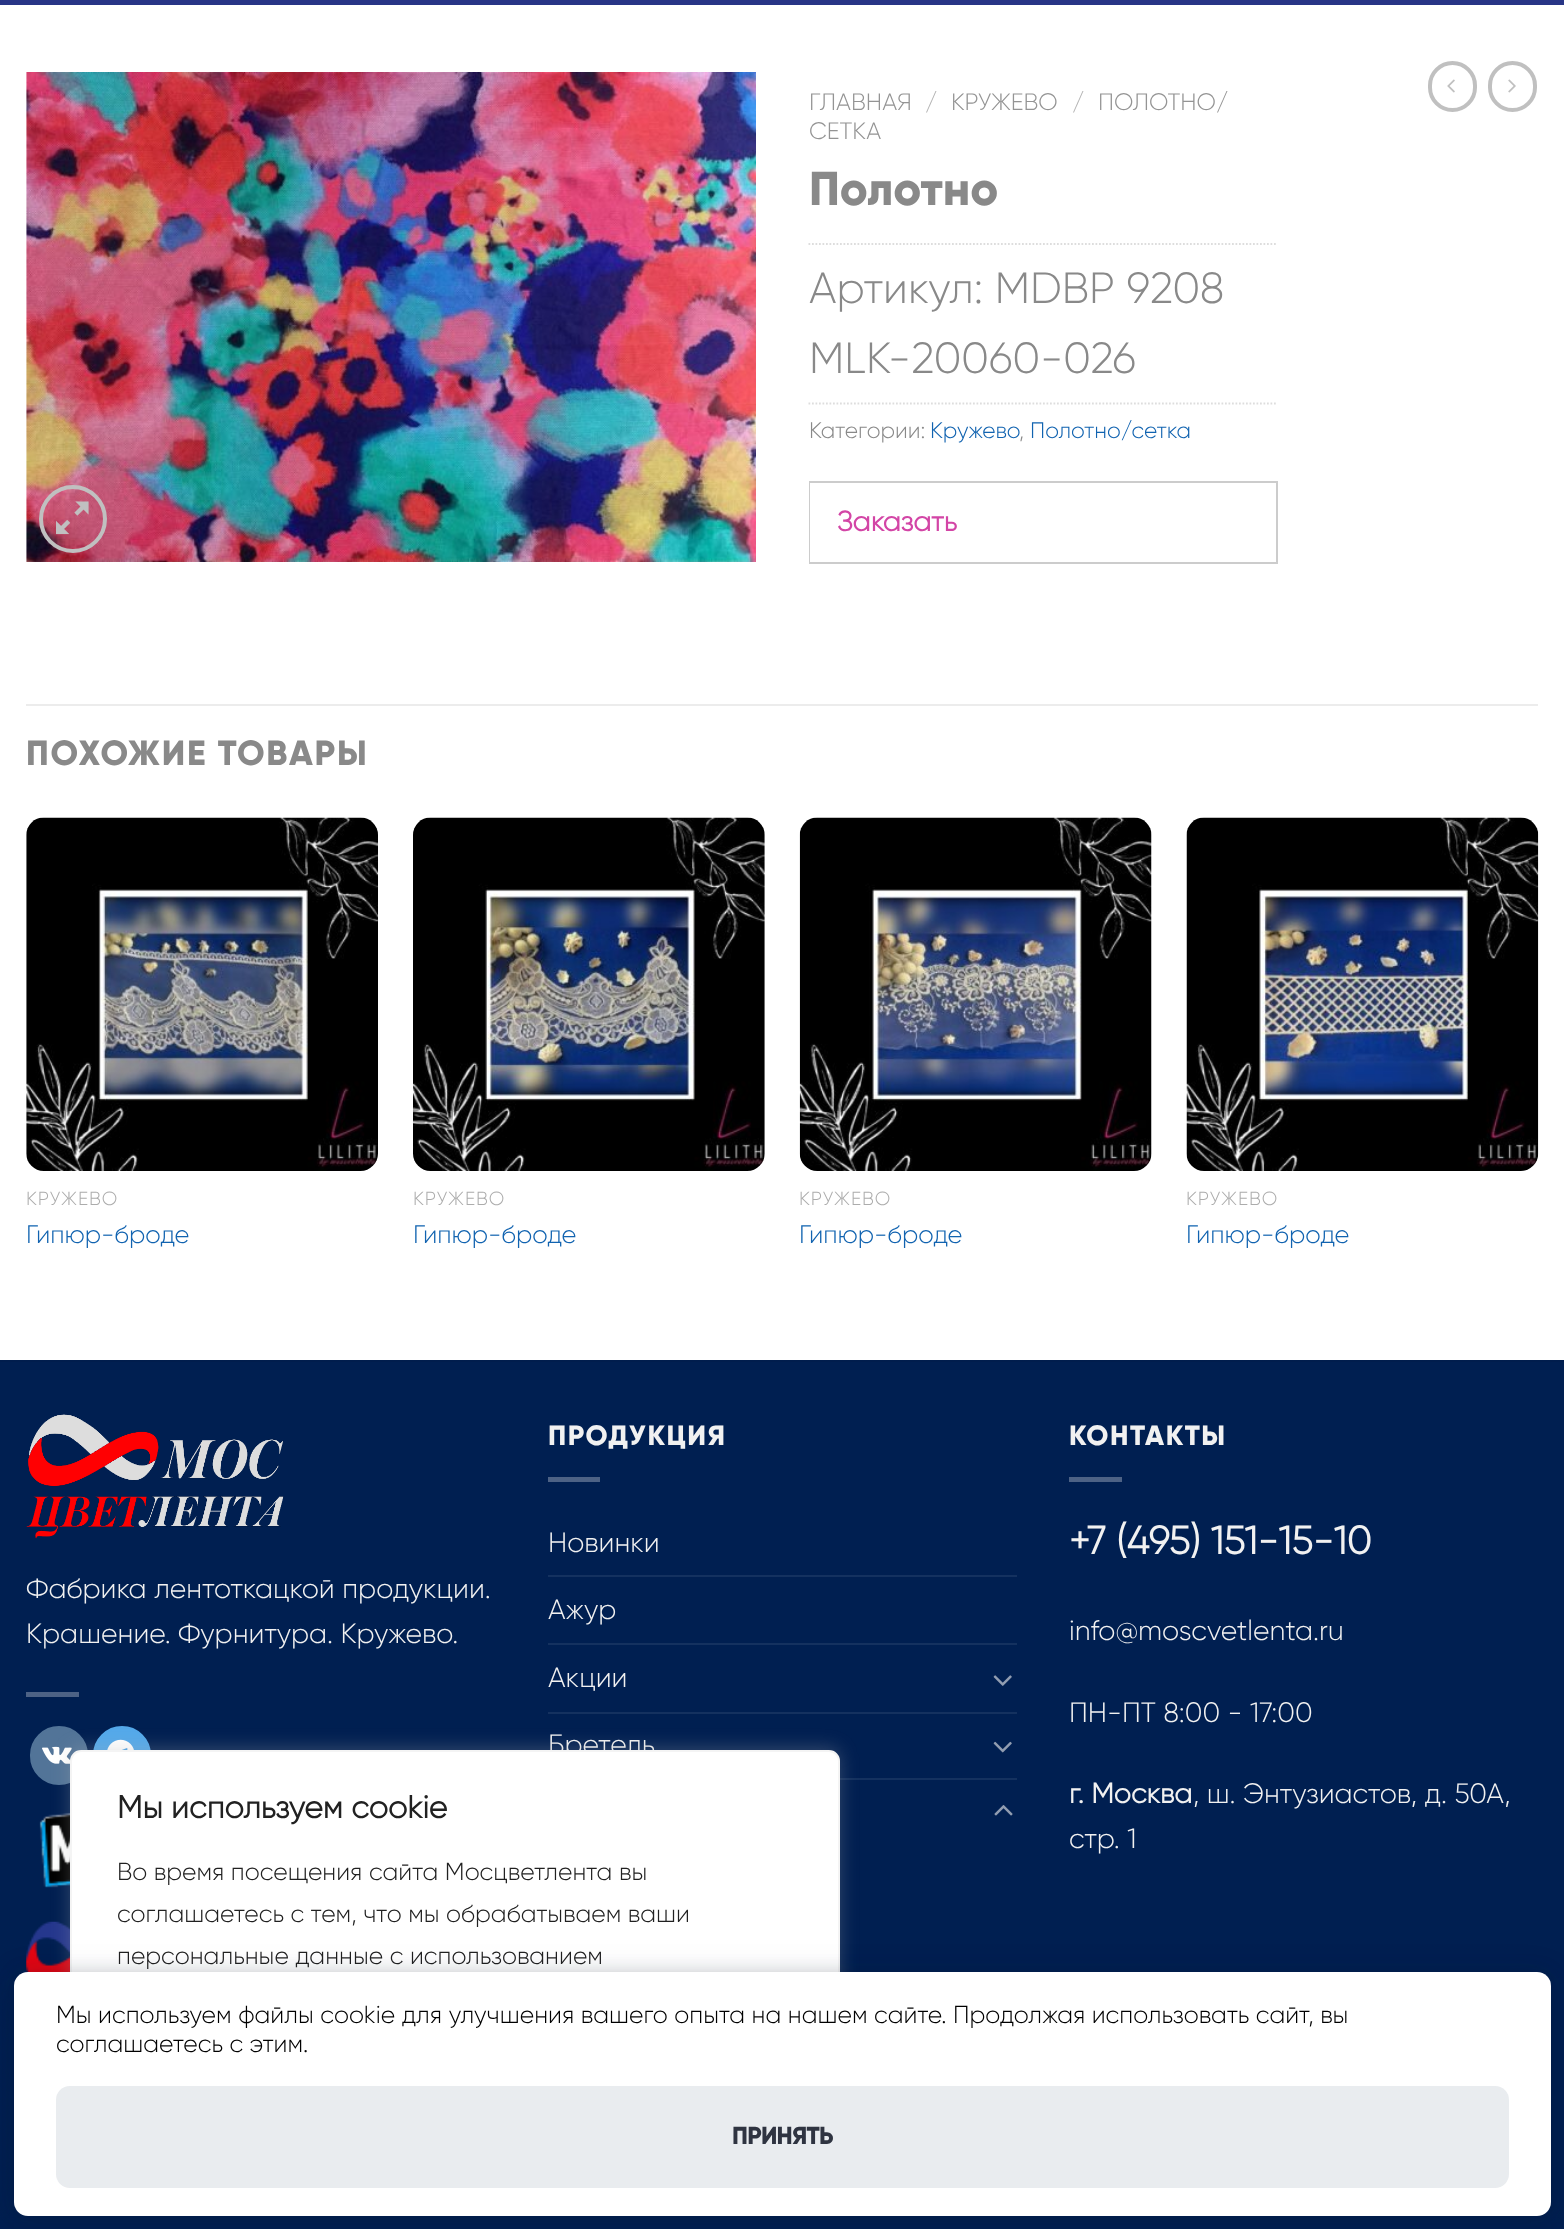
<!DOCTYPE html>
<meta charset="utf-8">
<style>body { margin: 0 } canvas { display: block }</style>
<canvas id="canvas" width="1564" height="2229"></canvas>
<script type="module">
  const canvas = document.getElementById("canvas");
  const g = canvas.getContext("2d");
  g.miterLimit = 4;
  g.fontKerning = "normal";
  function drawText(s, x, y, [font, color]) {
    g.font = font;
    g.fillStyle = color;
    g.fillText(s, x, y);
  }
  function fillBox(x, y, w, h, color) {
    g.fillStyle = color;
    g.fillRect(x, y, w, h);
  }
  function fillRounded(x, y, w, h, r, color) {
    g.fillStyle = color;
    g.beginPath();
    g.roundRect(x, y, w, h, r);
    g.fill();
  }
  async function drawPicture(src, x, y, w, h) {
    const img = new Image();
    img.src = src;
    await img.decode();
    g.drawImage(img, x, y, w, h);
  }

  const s1 = ["300 23.75px Gilroy", "#949494"];
  const s2 = ["300 23.75px Gilroy", "#B2B2B2"];
  const s3 = ["800 47.5px Gilroy", "#898989"];
  const s4 = ["300 43.75px Gilroy", "#898989"];
  const s5 = ["300 22.5px Gilroy", "#898989"];
  const s6 = ["300 22.5px Gilroy", "#1163B0"];
  const s7 = ["bold 28px Gilroy", "#D345A6"];
  const s8 = ["800 35px Gilroy", "#898989"];
  const s9 = ["300 19px Gilroy", "#ACACAC"];
  const s10 = ["300 25.25px Gilroy", "#1163B0"];
  const s11 = ["300 28px Gilroy", "#F1F1F1"];
  const s12 = ["800 28px Gilroy", "#F1F1F1"];
  const s13 = ["bold 39.25px Gilroy", "#F1F1F1"];
  const s14 = ["bold 28px Gilroy", "#F1F1F1"];
  const s15 = ["bold 31.5px Gilroy", "#212121"];
  const s16 = ["300 24.5px Gilroy", "#212121"];
  const s17 = ["300 24.5px Gilroy", "#000000"];
  const s18 = ["800 24.5px Gilroy", "#2F3441"];

  fillBox(0, 0, 1564, 2229, "#FFFFFF");
  fillBox(0, 0, 1564, 5, "#283586");
  await drawPicture("pic1.png", 26, 72, 730, 490);
  g.beginPath();
  g.arc(73, 519, 32, 0, Math.PI * 2);
  g.strokeStyle = "#C0C0C0";
  g.lineWidth = 4;
  g.stroke();
  await drawPicture("pic2.png", 56, 501, 33, 34);
  drawText("ГЛАВНАЯ", 809, 110, s1);
  drawText("/", 925, 110, s2);
  drawText("КРУЖЕВО", 951, 110, s1);
  drawText("/", 1072, 110, s2);
  drawText("ПОЛОТНО/", 1098, 110, s1);
  drawText("СЕТКА", 809, 139, s1);
  drawText("Полотно", 809, 205, s3);
  g.beginPath();
  g.moveTo(808.5, 244);
  g.lineTo(1277.5, 244);
  g.strokeStyle = "#DDDDDD";
  g.lineWidth = 1.8;
  g.setLineDash([1.75, 1.75]);
  g.stroke();
  drawText("Артикул: MDBP 9208", 809, 303, s4);
  drawText("MLK-20060-026", 809, 373, s4);
  g.beginPath();
  g.moveTo(808.5, 403.5);
  g.lineTo(1277.5, 403.5);
  g.stroke();
  drawText("Категории:", 809, 438, s5);
  drawText("Кружево", 930, 438, s6);
  drawText(",", 1019, 438, s5);
  drawText("Полотно/сетка", 1030, 438, s6);
  g.strokeStyle = "#CCCCCC";
  g.lineWidth = 2;
  g.setLineDash([]);
  g.strokeRect(810, 482, 467, 81);
  fillBox(810, 483, 1, 79, "#FFFFFF");
  drawText("Заказать", 837, 531, s7);
  g.beginPath();
  g.roundRect(1430, 63, 45, 47, 22.5);
  g.strokeStyle = "#C0C0C0";
  g.lineWidth = 4;
  g.stroke();
  await drawPicture("pic3.png", 1447, 79, 8, 14);
  g.beginPath();
  g.roundRect(1490, 63, 45, 47, 22.5);
  g.stroke();
  await drawPicture("pic4.png", 1508, 79, 8, 14);
  fillBox(26, 704, 1512, 2, "#ECECEC");
  g.letterSpacing = "1.75px";
  drawText("ПОХОЖИЕ ТОВАРЫ", 26, 765, s8);
  await drawPicture("pic5.png", 26, 817, 352, 354);
  g.letterSpacing = "1px";
  drawText("КРУЖЕВО", 26, 1205, s9);
  g.letterSpacing = "0px";
  drawText("Гипюр-броде", 26, 1243, s10);
  await drawPicture("pic6.png", 413, 817, 352, 354);
  g.letterSpacing = "1px";
  drawText("КРУЖЕВО", 413, 1205, s9);
  g.letterSpacing = "0px";
  drawText("Гипюр-броде", 413, 1243, s10);
  await drawPicture("pic7.png", 799, 817, 353, 354);
  g.letterSpacing = "1px";
  drawText("КРУЖЕВО", 799, 1205, s9);
  g.letterSpacing = "0px";
  drawText("Гипюр-броде", 799, 1243, s10);
  await drawPicture("pic8.png", 1186, 817, 353, 354);
  g.letterSpacing = "1px";
  drawText("КРУЖЕВО", 1186, 1205, s9);
  g.letterSpacing = "0px";
  drawText("Гипюр-броде", 1186, 1243, s10);
  fillBox(0, 1362, 1564, 867, "#001F51");
  fillBox(0, 1360, 1564, 2, "#001D4D");
  await drawPicture("pic9.png", 26, 1414, 258, 125);
  drawText("Фабрика лентоткацкой продукции.", 26, 1598, s11);
  drawText("Крашение. Фурнитура. Кружево.", 26, 1643, s11);
  fillBox(26, 1692, 53, 5, "#4D6285");
  g.fillStyle = "#527498";
  g.beginPath();
  g.roundRect(31, 1727, 56, 57, 28);
  g.fill();
  g.strokeStyle = "#527498";
  g.lineWidth = 2;
  g.stroke();
  await drawPicture("pic10.png", 42, 1746, 30, 18);
  g.fillStyle = "#54A9EA";
  g.beginPath();
  g.roundRect(94, 1727, 56, 57, 28);
  g.fill();
  g.strokeStyle = "#54A9EA";
  g.stroke();
  await drawPicture("pic11.png", 107, 1739, 27, 11);
  await drawPicture("pic12.png", 39, 1812, 31, 76);
  await drawPicture("pic13.png", 26, 1921, 44, 52);
  g.letterSpacing = "1.5px";
  drawText("ПРОДУКЦИЯ", 548, 1445, s12);
  fillBox(548, 1477, 52, 5, "#4D6285");
  g.letterSpacing = "0px";
  drawText("Новинки", 548, 1552, s11);
  fillBox(548, 1575, 469, 2, "#14315F");
  drawText("Ажур", 548, 1619, s11);
  fillBox(548, 1643, 469, 2, "#14315F");
  drawText("Акции", 548, 1687, s11);
  await drawPicture("pic14.png", 993, 1675, 19, 11);
  fillBox(548, 1712, 469, 2, "#14315F");
  drawText("Бретель", 548, 1754, s11);
  await drawPicture("pic15.png", 993, 1741, 19, 12);
  fillBox(840, 1778, 177, 2, "#14315F");
  await drawPicture("pic16.png", 994, 1805, 19, 11);
  g.letterSpacing = "1.5px";
  drawText("КОНТАКТЫ", 1069, 1445, s12);
  fillBox(1069, 1477, 53, 5, "#4D6285");
  g.letterSpacing = "0px";
  drawText("+7 (495) 151-15-10", 1069, 1554, s13);
  drawText("info@moscvetlenta.ru", 1069, 1640, s11);
  drawText("ПН-ПТ 8:00 - 17:00", 1069, 1722, s11);
  drawText("г. Москва", 1069, 1803, s14);
  drawText(", ш. Энтузиастов, д. 50А,", 1193, 1803, s11);
  drawText("стр. 1", 1069, 1848, s11);
  g.fillStyle = "rgba(172, 171, 171, 0.3)";
  g.filter = "blur(9px)";
  g.beginPath();
  g.roundRect(70, 1748, 770, 410, 11);
  g.fill();
  g.filter = "none";
  g.fillStyle = "#FFFFFF";
  g.beginPath();
  g.roundRect(71, 1751, 768, 408, 10);
  g.fill();
  g.strokeStyle = "#F4F4F4";
  g.stroke();
  drawText("Мы используем cookie", 117, 1818, s15);
  drawText("Во время посещения сайта Мосцветлента вы", 117, 1880, s16);
  drawText("соглашаетесь с тем, что мы обрабатываем ваши", 117, 1922, s16);
  drawText("персональные данные с использованием", 117, 1964, s16);
  g.fillStyle = "rgba(13, 18, 34, 0.15)";
  g.filter = "blur(9px)";
  g.beginPath();
  g.roundRect(14, 1972, 1537, 244, 14);
  g.fill();
  g.filter = "none";
  g.fillStyle = "rgba(7, 17, 46, 0.15)";
  g.filter = "blur(17.5px)";
  g.beginPath();
  g.roundRect(14, 1979, 1537, 244, 14);
  g.fill();
  g.filter = "none";
  fillRounded(14, 1972, 1537, 244, 14, "#FFFFFF");
  drawText("Мы используем файлы cookie для улучшения вашего опыта на нашем сайте. Продолжая использовать сайт, вы", 56, 2023, s17);
  drawText("соглашаетесь с этим.", 56, 2052, s17);
  fillRounded(56, 2086, 1453, 102, 14, "#E9ECEF");
  g.letterSpacing = "-0.75px";
  drawText("ПРИНЯТЬ", 732, 2144, s18);
</script>
